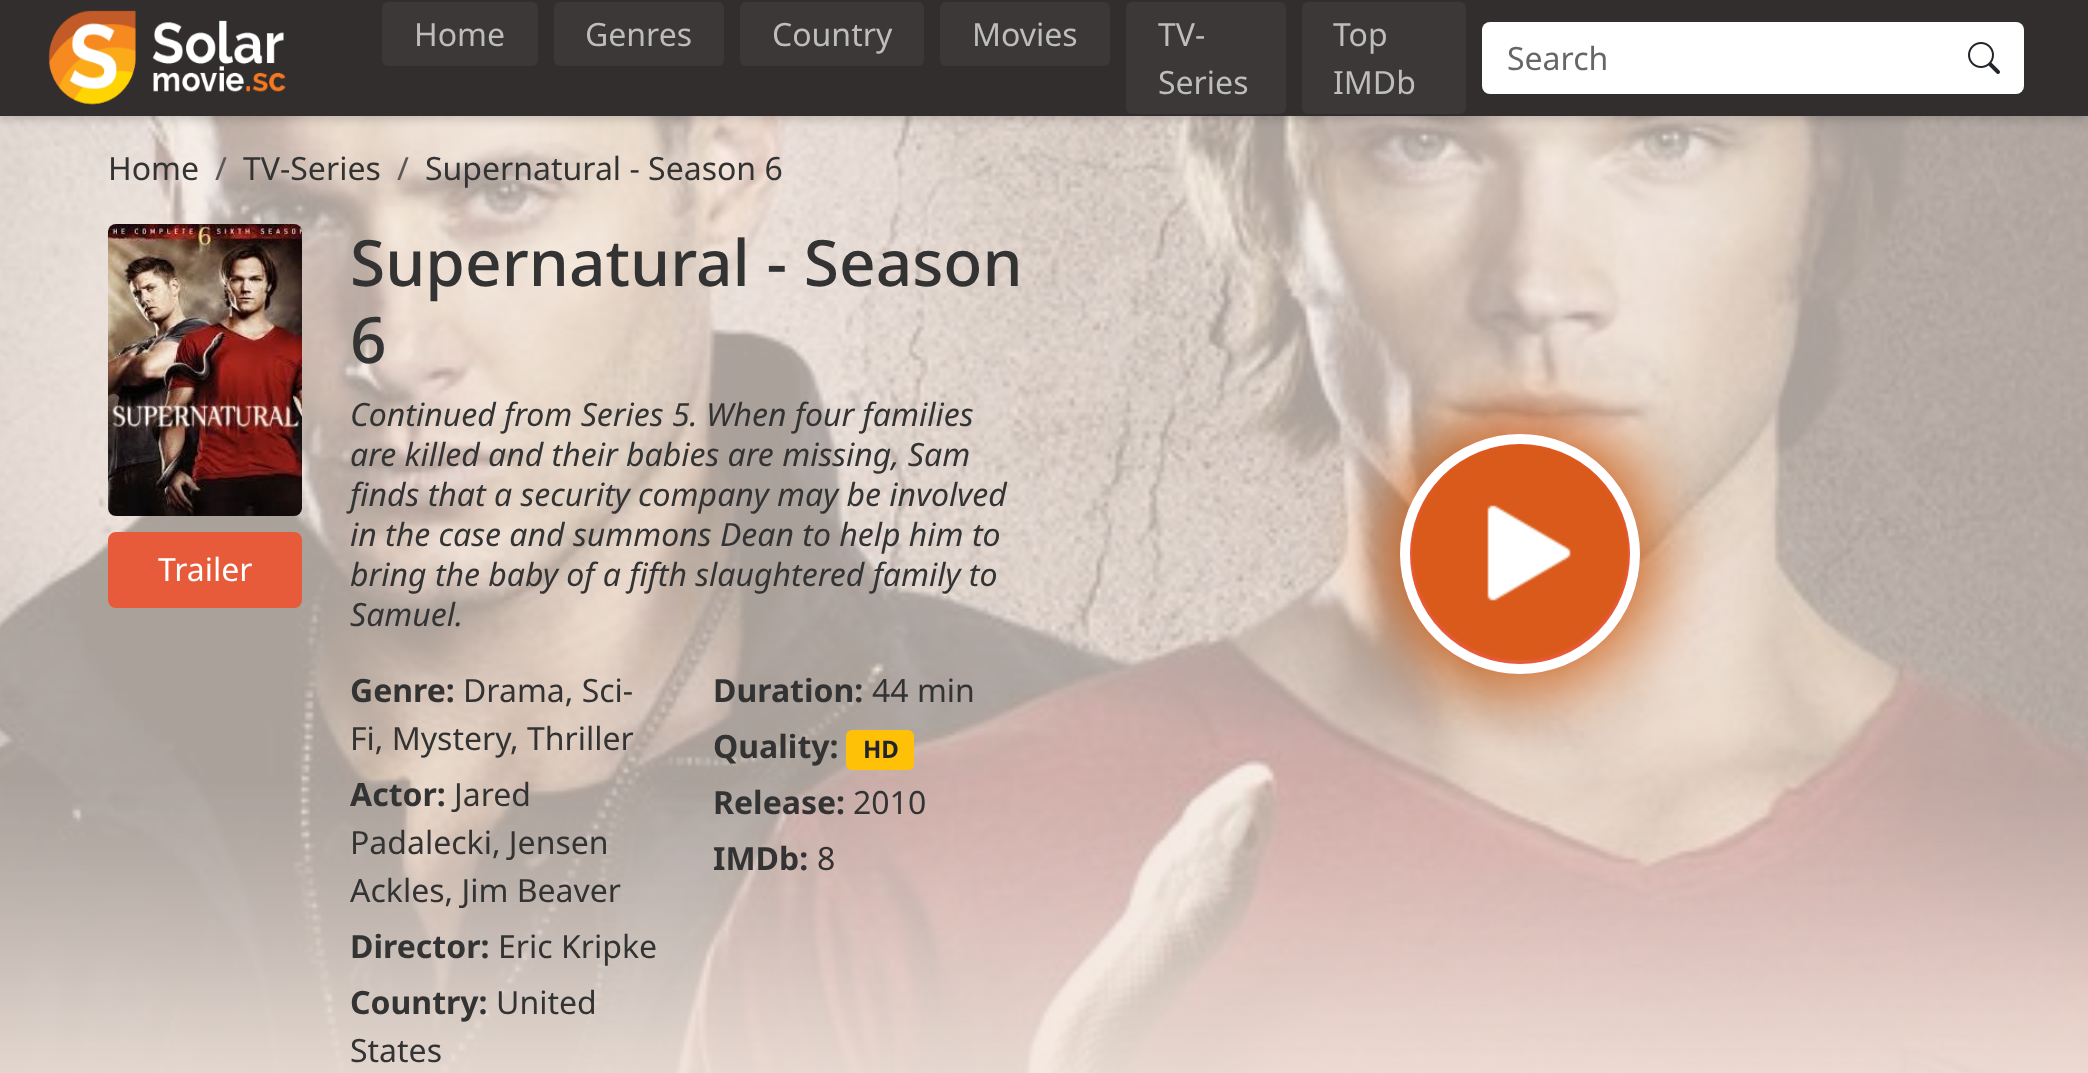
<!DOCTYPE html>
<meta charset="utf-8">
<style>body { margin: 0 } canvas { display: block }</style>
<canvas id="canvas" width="2088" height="1073"></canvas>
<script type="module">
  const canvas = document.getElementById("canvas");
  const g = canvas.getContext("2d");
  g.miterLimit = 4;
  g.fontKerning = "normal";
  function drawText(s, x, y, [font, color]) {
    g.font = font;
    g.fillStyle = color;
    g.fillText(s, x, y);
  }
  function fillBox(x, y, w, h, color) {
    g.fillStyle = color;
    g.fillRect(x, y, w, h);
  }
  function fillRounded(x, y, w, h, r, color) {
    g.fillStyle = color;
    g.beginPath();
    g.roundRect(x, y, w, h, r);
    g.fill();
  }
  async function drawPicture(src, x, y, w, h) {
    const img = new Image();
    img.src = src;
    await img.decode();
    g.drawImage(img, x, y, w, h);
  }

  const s1 = ["32px Noto Sans", "#BDBDBD"];
  const s2 = ["32px Noto Sans", "#666666"];
  const s3 = ["32px Noto Sans", "#333333"];
  const s4 = ["32px Noto Sans", "#5A5756"];
  const s5 = ["32px Noto Sans", "#FFFFFF"];
  const s6 = ["500 64px Noto Sans", "#333333"];
  const s7 = ["italic 32px Noto Sans", "#333333"];
  const s8 = ["bold 32px Noto Sans", "#333333"];
  const s9 = ["bold 24px Noto Sans", "#212529"];

  fillBox(0, 0, 2088, 1073, "#FFFFFF");
  await drawPicture("pic3.png", 0, 116, 2088, 957);
  g.fillStyle = "rgba(0, 0, 0, 0.15)";
  g.filter = "blur(4px)";
  g.beginPath();
  g.rect(0, 4, 2088, 116);
  g.fill();
  g.filter = "none";
  fillBox(0, 0, 2088, 116, "#322E2D");
  await drawPicture("pic1.png", 48, 10, 238, 95);
  fillRounded(382, 2, 156, 64, 6, "#3C3838");
  drawText("Home", 414, 46, s1);
  fillRounded(554, 2, 170, 64, 6, "#3C3838");
  drawText("Genres", 585, 46, s1);
  fillRounded(740, 2, 184, 64, 6, "#3C3838");
  drawText("Country", 772, 46, s1);
  fillRounded(940, 2, 170, 64, 6, "#3C3838");
  drawText("Movies", 972, 46, s1);
  fillRounded(1126, 2, 160, 112, 6, "#3C3838");
  drawText("TV-", 1158, 46, s1);
  drawText("Series", 1158, 94, s1);
  fillRounded(1302, 2, 164, 112, 6, "#3C3838");
  drawText("Top", 1333, 46, s1);
  drawText("IMDb", 1333, 94, s1);
  g.fillStyle = "#FFFFFF";
  g.beginPath();
  g.roundRect(1944, 22, 80, 72, [0, 8, 8, 0]);
  g.fill();
  g.beginPath();
  g.roundRect(1482, 22, 464, 72, [8, 0, 0, 8]);
  g.fill();
  drawText("Search", 1507, 70, s2);
  await drawPicture("pic2.png", 1968, 42, 32, 32);
  await drawPicture("pic4.png", 0, 783, 2088, 290);
  drawText("Home", 108, 180, s3);
  drawText("/", 215, 180, s4);
  drawText("TV-Series", 243, 180, s3);
  drawText("/", 397, 180, s4);
  drawText("Supernatural - Season 6", 425, 180, s3);
  await drawPicture("pic5.png", 108, 224, 194, 292);
  g.fillStyle = "#E75A3A";
  g.beginPath();
  g.roundRect(109, 533, 192, 74, 7);
  g.fill();
  g.strokeStyle = "#E75A3A";
  g.lineWidth = 2;
  g.stroke();
  drawText("Trailer", 158, 581, s5);
  drawText("Supernatural - Season", 350, 286, s6);
  drawText("6", 350, 363, s6);
  drawText("Continued from Series 5. When four families", 350, 426, s7);
  drawText("are killed and their babies are missing, Sam", 350, 466, s7);
  drawText("finds that a security company may be involved", 350, 506, s7);
  drawText("in the case and summons Dean to help him to", 350, 546, s7);
  drawText("bring the baby of a fifth slaughtered family to", 350, 586, s7);
  drawText("Samuel.", 350, 626, s7);
  drawText("Genre:", 350, 702, s8);
  drawText("Drama, Sci-", 463, 702, s3);
  drawText("Fi, Mystery", 350, 750, s3);
  drawText(", Thriller", 510, 750, s3);
  drawText("Actor:", 350, 806, s8);
  drawText("Jared", 454, 806, s3);
  drawText("Padalecki, Jensen", 350, 854, s3);
  drawText("Ackles, Jim Beaver", 350, 902, s3);
  drawText("Director:", 350, 958, s8);
  drawText("Eric Kripke", 498, 958, s3);
  drawText("Country:", 350, 1014, s8);
  drawText("United", 496, 1014, s3);
  drawText("States", 350, 1062, s3);
  drawText("Duration:", 713, 702, s8);
  drawText("44 min", 872, 702, s3);
  drawText("Quality:", 713, 758, s8);
  fillRounded(846, 730, 68, 40, 6, "#FFC107");
  drawText("HD", 863, 758, s9);
  drawText("Release:", 713, 814, s8);
  drawText("2010", 853, 814, s3);
  drawText("IMDb:", 713, 870, s8);
  drawText("8", 817, 870, s3);
  g.fillStyle = "#C95100";
  g.filter = "blur(40px)";
  g.beginPath();
  g.roundRect(1390, 424, 260, 260, 130);
  g.fill();
  g.filter = "none";
  g.fillStyle = "#E75A3A";
  g.beginPath();
  g.arc(1520, 554, 120, 0, Math.PI * 2);
  g.fill();
  await drawPicture("pic6.png", 1412, 444, 216, 216);
  g.beginPath();
  g.arc(1520, 554, 115, 0, Math.PI * 2);
  g.strokeStyle = "#FFFFFF";
  g.lineWidth = 10;
  g.stroke();
</script>
